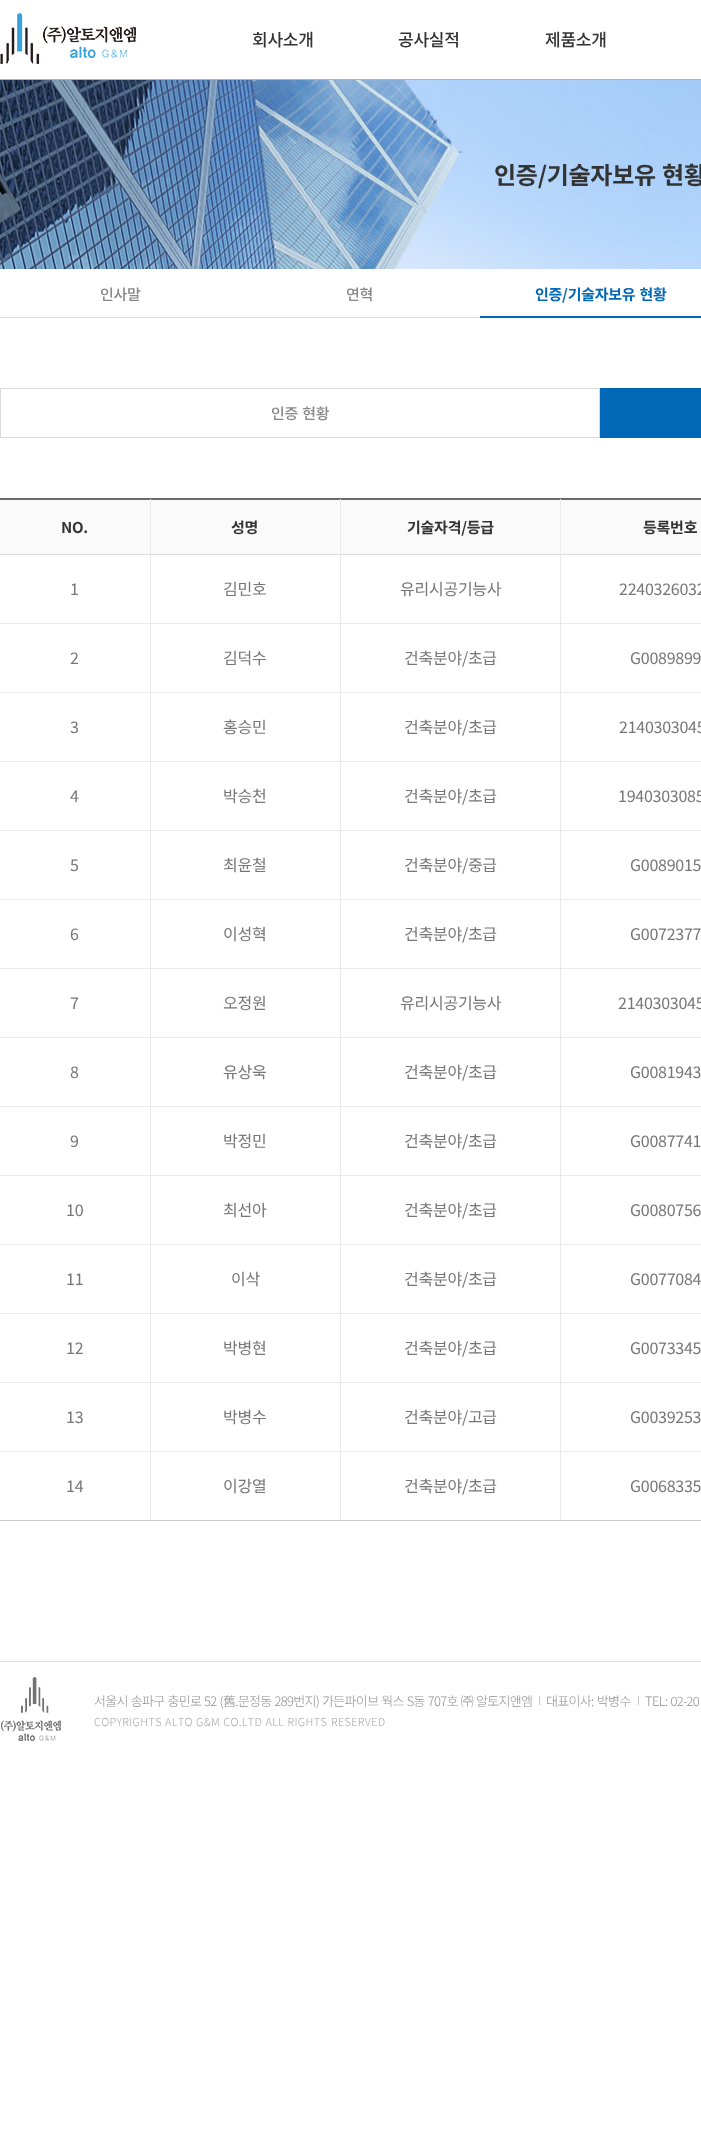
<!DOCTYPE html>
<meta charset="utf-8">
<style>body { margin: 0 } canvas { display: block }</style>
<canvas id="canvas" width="701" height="2132"></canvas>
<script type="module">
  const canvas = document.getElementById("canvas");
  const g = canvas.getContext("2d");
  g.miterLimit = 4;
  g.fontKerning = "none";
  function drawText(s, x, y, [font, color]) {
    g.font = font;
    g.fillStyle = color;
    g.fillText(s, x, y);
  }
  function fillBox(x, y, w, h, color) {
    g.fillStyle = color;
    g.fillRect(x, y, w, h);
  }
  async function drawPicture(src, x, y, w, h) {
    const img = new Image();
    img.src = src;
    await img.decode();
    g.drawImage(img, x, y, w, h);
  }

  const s1 = ["500 17px Noto Sans KR", "#333333"];
  const s2 = ["bold 24px Noto Sans KR", "#333333"];
  const s3 = ["500 15px Noto Sans KR", "#888888"];
  const s4 = ["bold 15px Noto Sans KR", "#0168B7"];
  const s5 = ["bold 15px Noto Sans KR", "#333333"];
  const s6 = ["16px Noto Sans KR", "#767676"];
  const s7 = ["300 13px Noto Sans KR", "#8F8F8F"];
  const s8 = ["300 11px Noto Sans KR", "#A7A7A7"];

  fillBox(0, 0, 701, 2132, "#FFFFFF");
  fillBox(0, 79, 701, 1, "#B3B3B3");
  await drawPicture("pic1.png", 0, 13, 136, 52);
  g.letterSpacing = "-0.25px";
  drawText("회사소개", 252, 46, s1);
  drawText("공사실적", 398, 46, s1);
  drawText("제품소개", 545, 46, s1);
  await drawPicture("pic2.png", 0, 80, 701, 189);
  g.wordSpacing = "1px";
  drawText("인증/기술자보유 현황", 494, 184, s2);
  fillBox(0, 317, 480, 1, "#DDDDDD");
  g.wordSpacing = "0px";
  drawText("인사말", 100, 300, s3);
  drawText("연혁", 346, 300, s3);
  fillBox(480, 316, 221, 2, "#0168B7");
  g.wordSpacing = "1px";
  drawText("인증/기술자보유 현황", 535, 300, s4);
  g.strokeStyle = "#D9D9D9";
  g.strokeRect(0.5, 388.5, 599, 49);
  drawText("인증 현황", 271, 419, s3);
  fillBox(600, 388, 101, 50, "#0168B7");
  fillBox(0, 498, 701, 2, "#676A6E");
  fillBox(0, 1520, 701, 1, "#CCCCCC");
  fillBox(0, 500, 701, 54, "#FAFAFA");
  g.wordSpacing = "0px";
  drawText("NO.", 61, 533, s5);
  drawText("성명", 231, 533, s5);
  drawText("기술자격/등급", 407, 533, s5);
  drawText("등록번호", 643, 533, s5);
  fillBox(0, 554, 701, 1, "#DDDDDD");
  fillBox(0, 623, 701, 1, "#E9E9E9");
  fillBox(0, 692, 701, 1, "#E9E9E9");
  fillBox(0, 761, 701, 1, "#E9E9E9");
  fillBox(0, 830, 701, 1, "#E9E9E9");
  fillBox(0, 899, 701, 1, "#E9E9E9");
  fillBox(0, 968, 701, 1, "#E9E9E9");
  fillBox(0, 1037, 701, 1, "#E9E9E9");
  fillBox(0, 1106, 701, 1, "#E9E9E9");
  fillBox(0, 1175, 701, 1, "#E9E9E9");
  fillBox(0, 1244, 701, 1, "#E9E9E9");
  fillBox(0, 1313, 701, 1, "#E9E9E9");
  fillBox(0, 1382, 701, 1, "#E9E9E9");
  fillBox(0, 1451, 701, 1, "#E9E9E9");
  fillBox(150, 1451, 1, 69, "#E9E9E9");
  fillBox(150, 1382, 1, 70, "#E9E9E9");
  fillBox(150, 1313, 1, 70, "#E9E9E9");
  fillBox(150, 1244, 1, 70, "#E9E9E9");
  fillBox(150, 1175, 1, 70, "#E9E9E9");
  fillBox(150, 1106, 1, 70, "#E9E9E9");
  fillBox(150, 1037, 1, 70, "#E9E9E9");
  fillBox(150, 968, 1, 70, "#E9E9E9");
  fillBox(150, 899, 1, 70, "#E9E9E9");
  fillBox(150, 830, 1, 70, "#E9E9E9");
  fillBox(150, 761, 1, 70, "#E9E9E9");
  fillBox(150, 692, 1, 70, "#E9E9E9");
  fillBox(150, 623, 1, 70, "#E9E9E9");
  fillBox(150, 499, 1, 125, "#E9E9E9");
  drawText("1", 70, 595, s6);
  fillBox(340, 1451, 1, 69, "#E9E9E9");
  fillBox(340, 1382, 1, 70, "#E9E9E9");
  fillBox(340, 1313, 1, 70, "#E9E9E9");
  fillBox(340, 1244, 1, 70, "#E9E9E9");
  fillBox(340, 1175, 1, 70, "#E9E9E9");
  fillBox(340, 1106, 1, 70, "#E9E9E9");
  fillBox(340, 1037, 1, 70, "#E9E9E9");
  fillBox(340, 968, 1, 70, "#E9E9E9");
  fillBox(340, 899, 1, 70, "#E9E9E9");
  fillBox(340, 830, 1, 70, "#E9E9E9");
  fillBox(340, 761, 1, 70, "#E9E9E9");
  fillBox(340, 692, 1, 70, "#E9E9E9");
  fillBox(340, 623, 1, 70, "#E9E9E9");
  fillBox(340, 499, 1, 125, "#E9E9E9");
  drawText("김민호", 223, 595, s6);
  fillBox(560, 1451, 1, 69, "#E9E9E9");
  fillBox(560, 1382, 1, 70, "#E9E9E9");
  fillBox(560, 1313, 1, 70, "#E9E9E9");
  fillBox(560, 1244, 1, 70, "#E9E9E9");
  fillBox(560, 1175, 1, 70, "#E9E9E9");
  fillBox(560, 1106, 1, 70, "#E9E9E9");
  fillBox(560, 1037, 1, 70, "#E9E9E9");
  fillBox(560, 968, 1, 70, "#E9E9E9");
  fillBox(560, 899, 1, 70, "#E9E9E9");
  fillBox(560, 830, 1, 70, "#E9E9E9");
  fillBox(560, 761, 1, 70, "#E9E9E9");
  fillBox(560, 692, 1, 70, "#E9E9E9");
  fillBox(560, 623, 1, 70, "#E9E9E9");
  fillBox(560, 499, 1, 125, "#E9E9E9");
  drawText("유리시공기능사", 400, 595, s6);
  drawText("2240326032", 619, 595, s6);
  drawText("2", 70, 664, s6);
  drawText("김덕수", 223, 664, s6);
  drawText("건축분야/초급", 404, 664, s6);
  drawText("G0089899", 630, 664, s6);
  drawText("3", 70, 733, s6);
  drawText("홍승민", 223, 733, s6);
  drawText("건축분야/초급", 404, 733, s6);
  drawText("2140303045", 619, 733, s6);
  drawText("4", 70, 802, s6);
  drawText("박승천", 223, 802, s6);
  drawText("건축분야/초급", 404, 802, s6);
  drawText("1940303085", 618, 802, s6);
  drawText("5", 70, 871, s6);
  drawText("최윤철", 223, 871, s6);
  drawText("건축분야/중급", 404, 871, s6);
  drawText("G0089015", 630, 871, s6);
  drawText("6", 70, 940, s6);
  drawText("이성혁", 223, 940, s6);
  drawText("건축분야/초급", 404, 940, s6);
  drawText("G0072377", 630, 940, s6);
  drawText("7", 70, 1009, s6);
  drawText("오정원", 223, 1009, s6);
  drawText("유리시공기능사", 400, 1009, s6);
  drawText("2140303045", 618, 1009, s6);
  drawText("8", 70, 1078, s6);
  drawText("유상욱", 223, 1078, s6);
  drawText("건축분야/초급", 404, 1078, s6);
  drawText("G0081943", 630, 1078, s6);
  drawText("9", 70, 1147, s6);
  drawText("박정민", 223, 1147, s6);
  drawText("건축분야/초급", 404, 1147, s6);
  drawText("G0087741", 630, 1147, s6);
  drawText("10", 66, 1216, s6);
  drawText("최선아", 223, 1216, s6);
  drawText("건축분야/초급", 404, 1216, s6);
  drawText("G0080756", 630, 1216, s6);
  drawText("11", 66, 1285, s6);
  drawText("이삭", 231, 1285, s6);
  drawText("건축분야/초급", 404, 1285, s6);
  drawText("G0077084", 630, 1285, s6);
  drawText("12", 66, 1354, s6);
  drawText("박병현", 223, 1354, s6);
  drawText("건축분야/초급", 404, 1354, s6);
  drawText("G0073345", 630, 1354, s6);
  drawText("13", 66, 1423, s6);
  drawText("박병수", 223, 1423, s6);
  drawText("건축분야/고급", 404, 1423, s6);
  drawText("G0039253", 630, 1423, s6);
  drawText("14", 66, 1492, s6);
  drawText("이강열", 223, 1492, s6);
  drawText("건축분야/초급", 404, 1492, s6);
  drawText("G0068335", 630, 1492, s6);
  fillBox(0, 1661, 701, 1, "#E1E1E1");
  await drawPicture("pic3.png", 1, 1677, 60, 64);
  g.letterSpacing = "-0.7px";
  g.wordSpacing = "0.75px";
  drawText("서울시 송파구 충민로 52 (舊.문정동 289번지) 가든파이브 웍스 S동 707호 ㈜ 알토지앤엠", 94, 1706, s7);
  fillBox(539, 1696, 1, 9, "#C7C7C7");
  g.wordSpacing = "1px";
  drawText("대표이사: 박병수", 546, 1706, s7);
  fillBox(638, 1696, 1, 9, "#C7C7C7");
  drawText("TEL: 02-20", 645, 1706, s7);
  g.letterSpacing = "0.3px";
  g.wordSpacing = "0.5px";
  drawText("COPYRIGHTS ALTO", 94, 1726, s8);
  drawText("G&M CO.LTD ALL RIGHTS", 196, 1726, s8);
  drawText("RESERVED", 331, 1726, s8);
</script>
